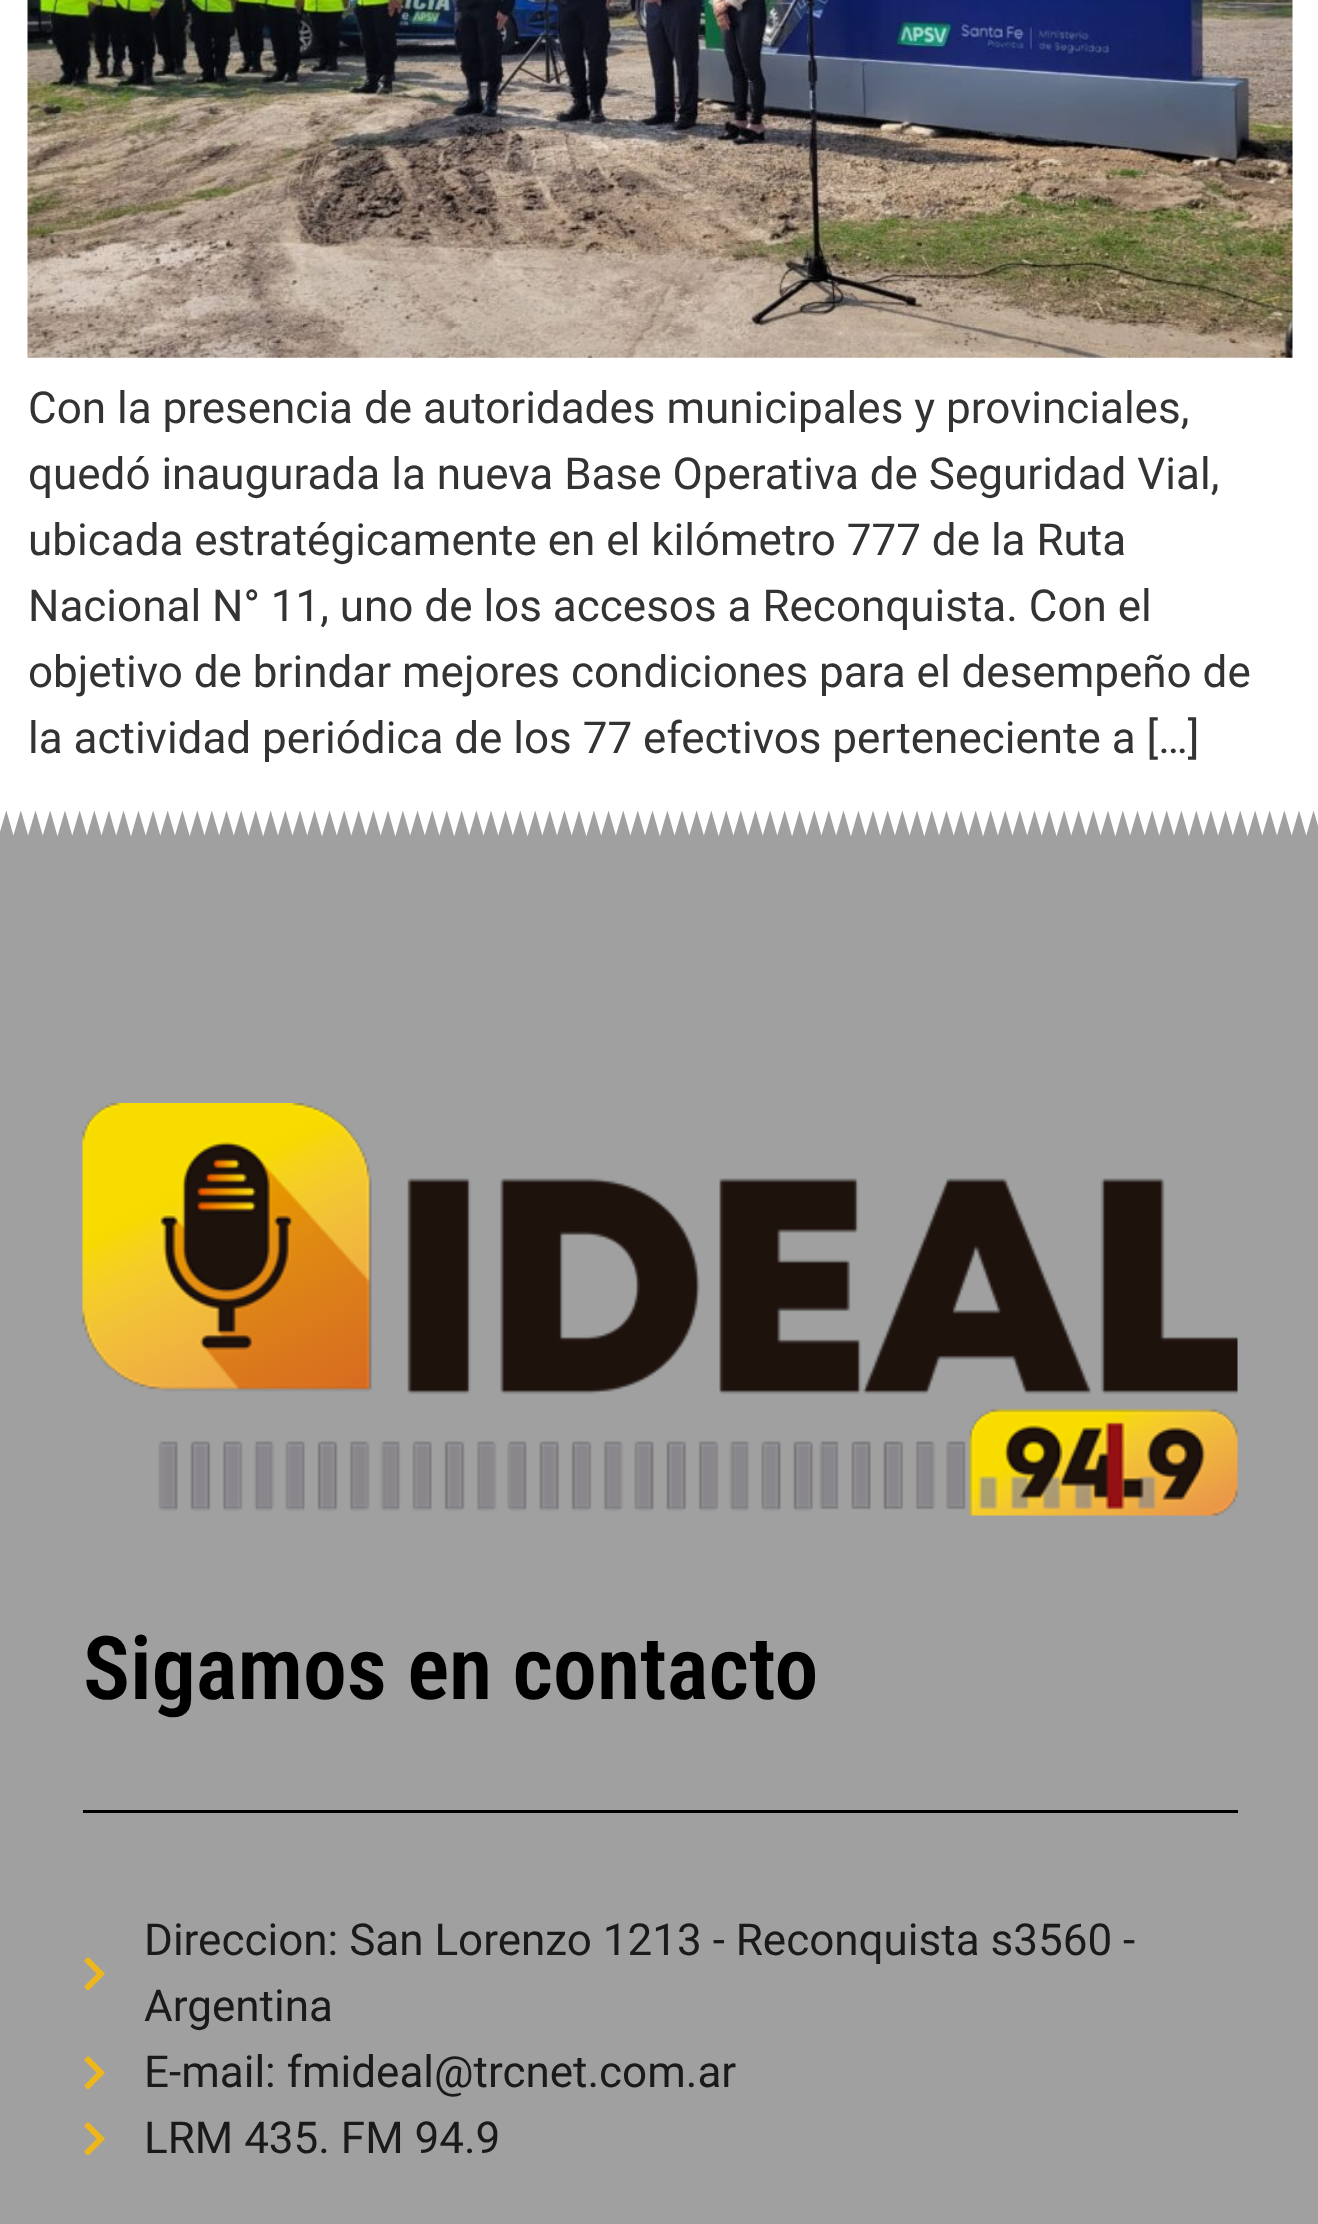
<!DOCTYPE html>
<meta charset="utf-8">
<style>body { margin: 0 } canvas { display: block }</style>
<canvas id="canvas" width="1318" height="2224"></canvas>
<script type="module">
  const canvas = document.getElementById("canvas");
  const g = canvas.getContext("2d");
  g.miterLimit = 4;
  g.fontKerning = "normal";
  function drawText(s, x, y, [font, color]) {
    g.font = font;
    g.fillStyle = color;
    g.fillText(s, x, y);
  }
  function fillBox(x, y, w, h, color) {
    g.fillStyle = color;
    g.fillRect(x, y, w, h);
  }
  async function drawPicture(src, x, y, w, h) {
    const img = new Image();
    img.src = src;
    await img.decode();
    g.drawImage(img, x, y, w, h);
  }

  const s1 = ["44px Roboto", "#333333"];
  const s2 = ["600 88px Roboto Condensed", "#000000"];
  const s3 = ["44px Roboto", "#1A1A1A"];

  fillBox(0, 0, 1318, 2224, "#FFFFFF");
  await drawPicture("pic1.png", 27, 0, 1266, 358);
  drawText("Con la presencia de autoridades municipales y provinciales,", 28, 423, s1);
  drawText("quedó inaugurada la nueva Base Operativa de Seguridad Vial,", 28, 489, s1);
  drawText("ubicada estratégicamente en el kilómetro 777 de la Ruta", 28, 555, s1);
  drawText("Nacional N° 11, uno de los accesos a Reconquista. Con el", 28, 621, s1);
  drawText("objetivo de brindar mejores condiciones para el desempeño de", 28, 687, s1);
  drawText("la actividad periódica de los 77 efectivos perteneciente a […]", 28, 753, s1);
  fillBox(0, 811, 1318, 1413, "#A0A0A0");
  await drawPicture("pic2.png", 0, 811, 1318, 25);
  await drawPicture("pic3.png", 82, 1103, 1156, 413);
  drawText("Sigamos en contacto", 83, 1699, s2);
  fillBox(83, 1810, 1155, 3, "#000000");
  await drawPicture("pic4.png", 84, 1957, 21, 34);
  drawText("Direccion: San Lorenzo 1213 - Reconquista s3560 -", 144, 1955, s3);
  drawText("Argentina", 144, 2021, s3);
  await drawPicture("pic4.png", 84, 2056, 21, 34);
  drawText("E-mail: fmideal@trcnet.com.ar", 144, 2087, s3);
  await drawPicture("pic4.png", 84, 2122, 21, 34);
  drawText("LRM 435. FM 94.9", 144, 2153, s3);
</script>
